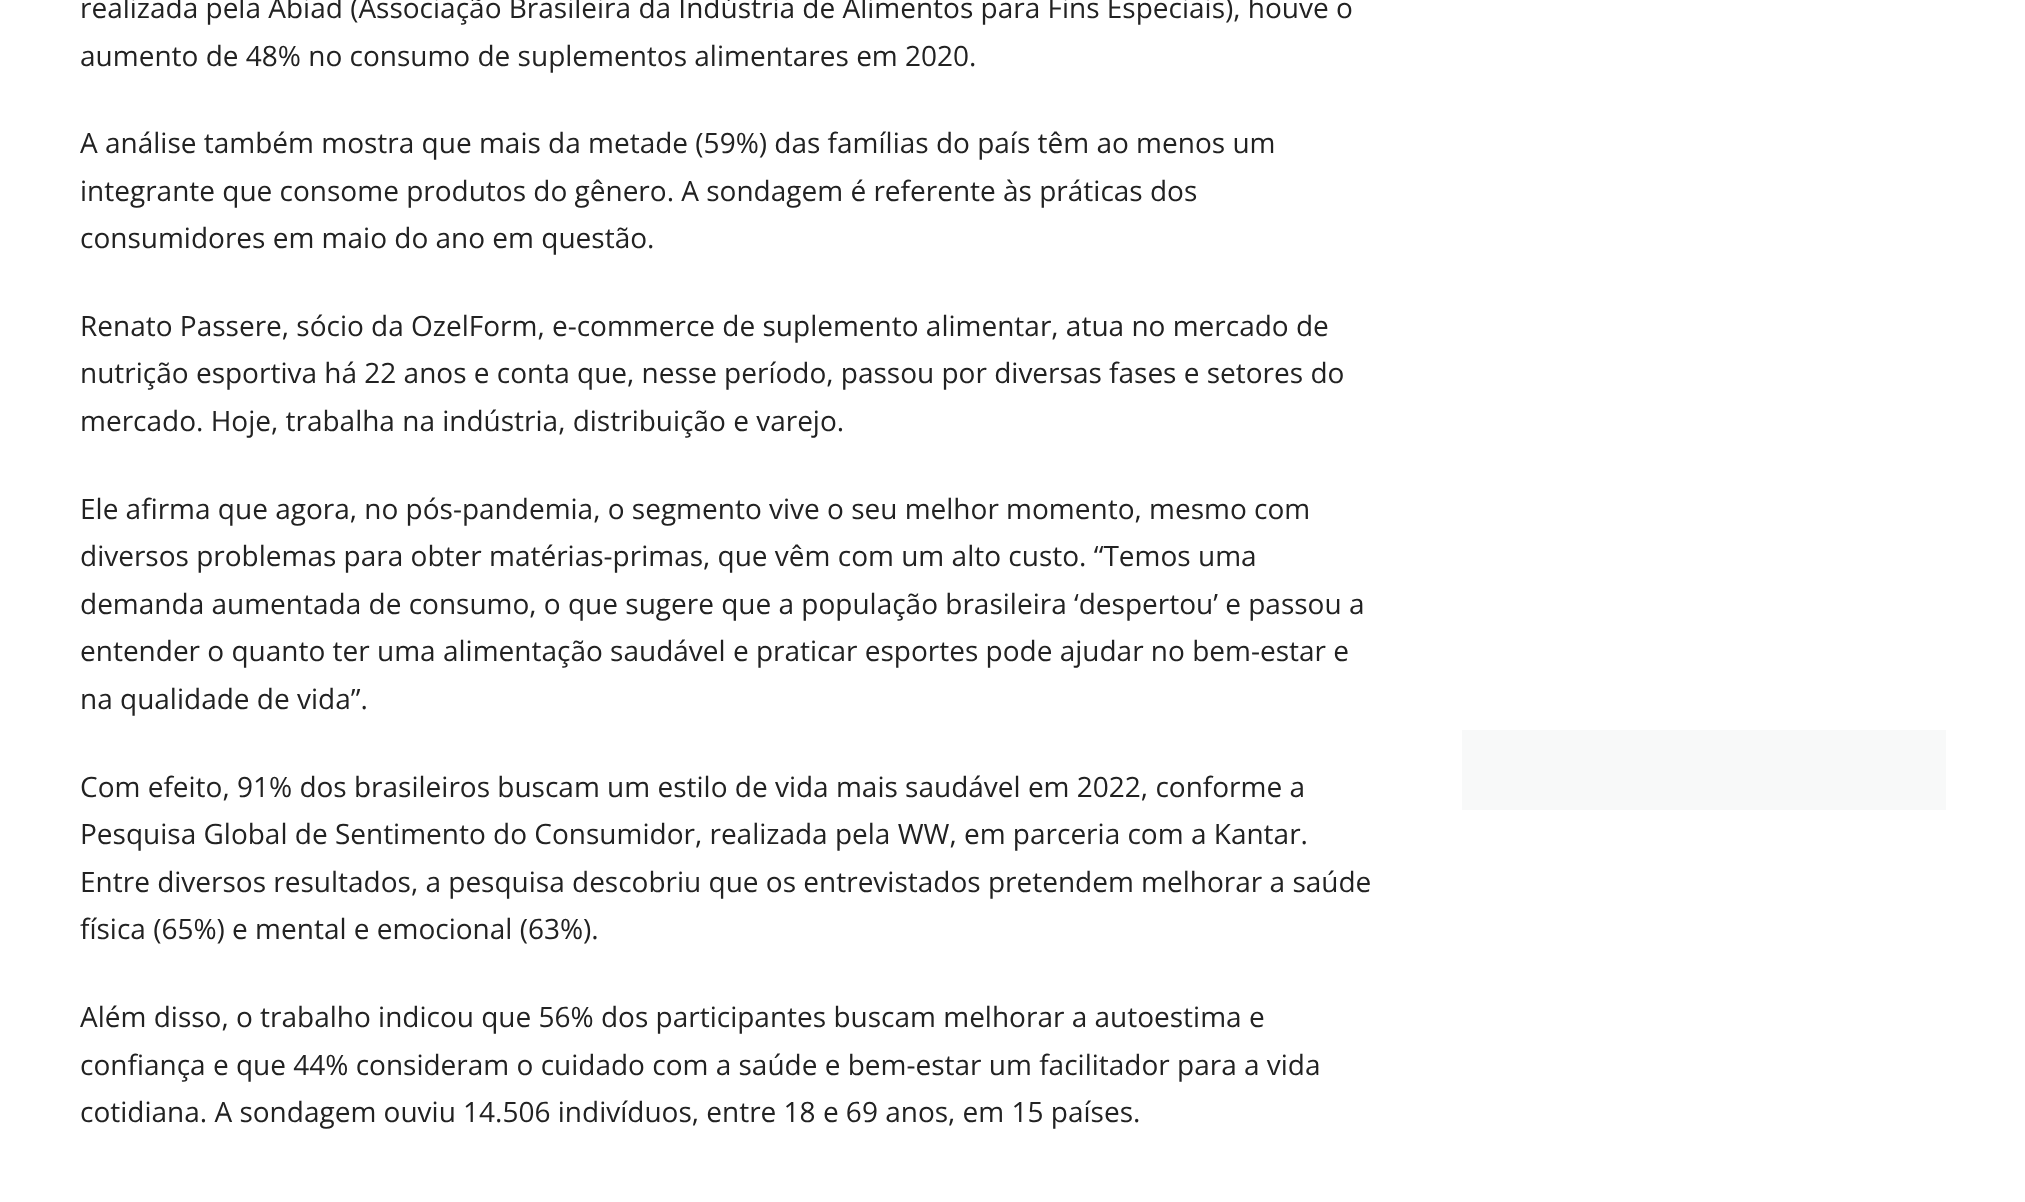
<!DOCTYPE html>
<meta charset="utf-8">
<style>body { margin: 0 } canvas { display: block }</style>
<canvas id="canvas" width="2025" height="1202"></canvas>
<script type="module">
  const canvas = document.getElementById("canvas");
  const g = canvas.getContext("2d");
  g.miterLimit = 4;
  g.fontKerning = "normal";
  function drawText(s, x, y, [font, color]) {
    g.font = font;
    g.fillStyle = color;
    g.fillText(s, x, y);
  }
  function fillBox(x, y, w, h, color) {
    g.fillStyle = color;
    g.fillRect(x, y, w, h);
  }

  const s1 = ["28px Open Sans", "#222222"];

  fillBox(0, 0, 2025, 1202, "#FFFFFF");
  drawText("realizada pela Abiad (Associação Brasileira da Indústria de Alimentos para Fins Especiais), houve o", 80, 18, s1);
  drawText("aumento de 48% no consumo de suplementos alimentares em 2020.", 80, 66, s1);
  drawText("A análise também mostra que mais da metade (59%) das famílias do país têm ao menos um", 80, 153, s1);
  drawText("integrante que consome produtos do gênero. A sondagem é referente às práticas dos", 80, 201, s1);
  drawText("consumidores em maio do ano em questão.", 80, 248, s1);
  drawText("Renato Passere, sócio da OzelForm, e-commerce de suplemento alimentar, atua no mercado de", 80, 336, s1);
  drawText("nutrição esportiva há 22 anos e conta que, nesse período, passou por diversas fases e setores do", 80, 383, s1);
  drawText("mercado. Hoje, trabalha na indústria, distribuição e varejo.", 80, 431, s1);
  drawText("Ele afirma que agora, no pós-pandemia, o segmento vive o seu melhor momento, mesmo com", 80, 519, s1);
  drawText("diversos problemas para obter matérias-primas, que vêm com um alto custo. “Temos uma", 80, 566, s1);
  drawText("demanda aumentada de consumo, o que sugere que a população brasileira ‘despertou’ e passou a", 80, 614, s1);
  drawText("entender o quanto ter uma alimentação saudável e praticar esportes pode ajudar no bem-estar e", 80, 661, s1);
  drawText("na qualidade de vida”.", 80, 709, s1);
  drawText("Com efeito, 91% dos brasileiros buscam um estilo de vida mais saudável em 2022, conforme a", 80, 797, s1);
  drawText("Pesquisa Global de Sentimento do Consumidor, realizada pela WW, em parceria com a Kantar.", 80, 844, s1);
  drawText("Entre diversos resultados, a pesquisa descobriu que os entrevistados pretendem melhorar a saúde", 80, 892, s1);
  drawText("física (65%) e mental e emocional (63%).", 80, 939, s1);
  drawText("Além disso, o trabalho indicou que 56% dos participantes buscam melhorar a autoestima e", 80, 1027, s1);
  drawText("confiança e que 44% consideram o cuidado com a saúde e bem-estar um facilitador para a vida", 80, 1075, s1);
  drawText("cotidiana. A sondagem ouviu 14.506 indivíduos, entre 18 e 69 anos, em 15 países.", 80, 1122, s1);
  fillBox(1462, 730, 484, 80, "#F8F9F9");
</script>
